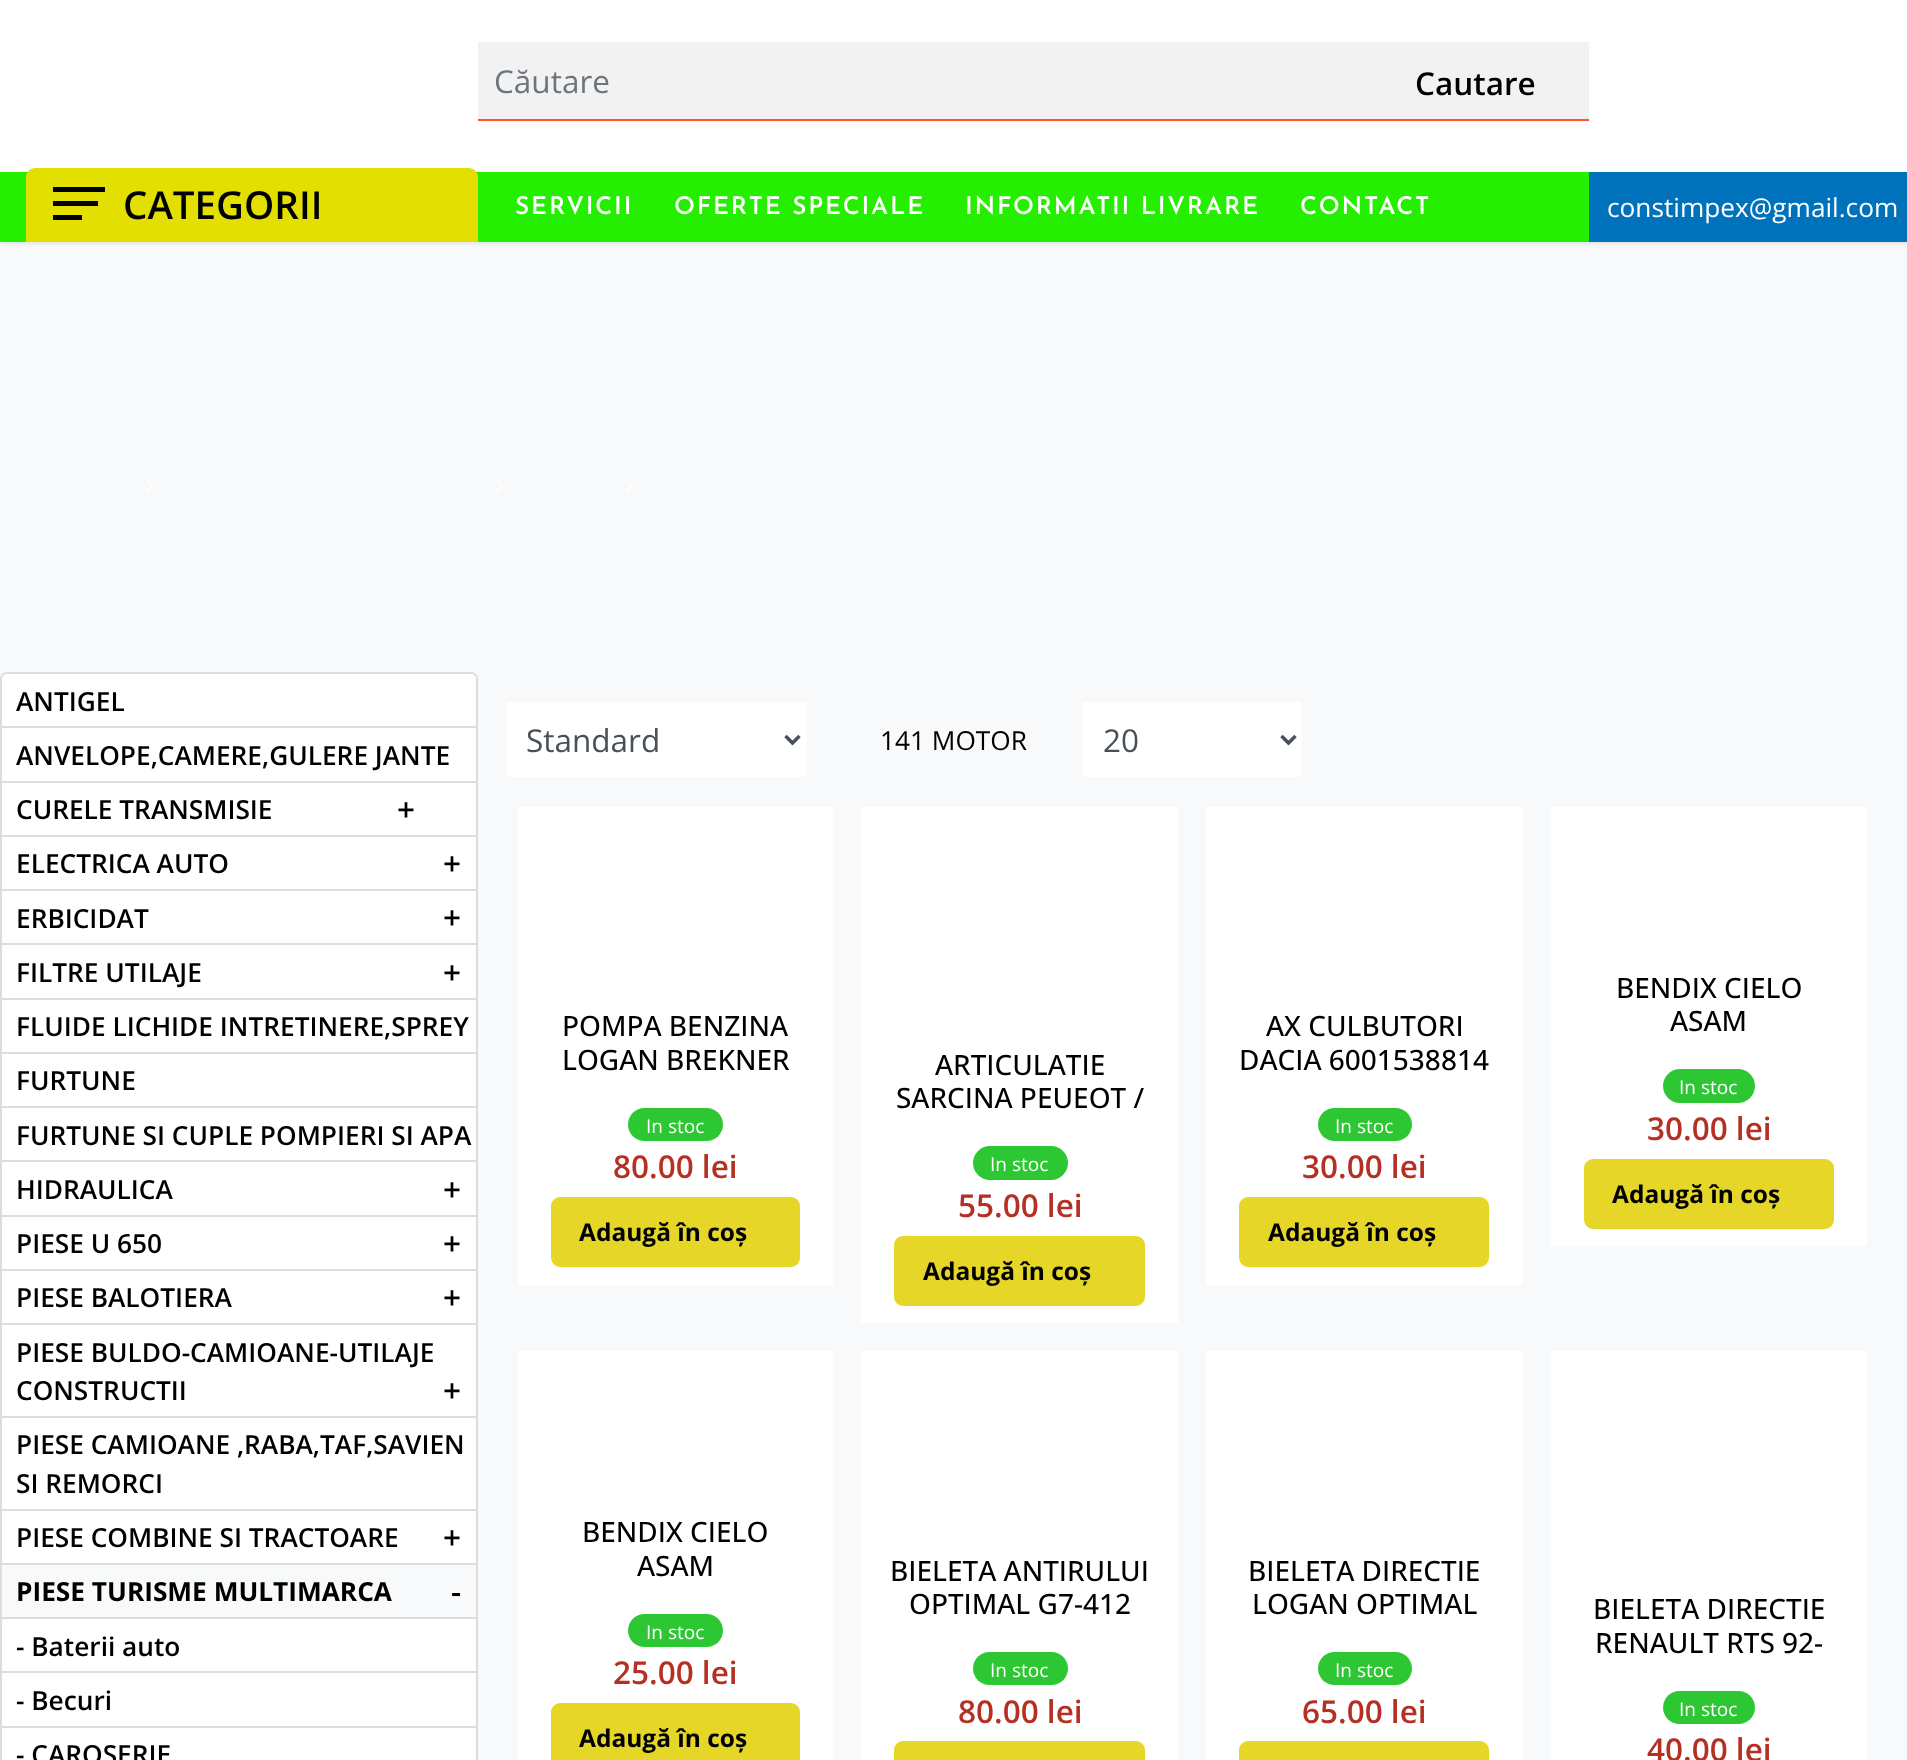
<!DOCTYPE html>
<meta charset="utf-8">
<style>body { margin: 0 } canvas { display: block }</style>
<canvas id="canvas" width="1907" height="1760"></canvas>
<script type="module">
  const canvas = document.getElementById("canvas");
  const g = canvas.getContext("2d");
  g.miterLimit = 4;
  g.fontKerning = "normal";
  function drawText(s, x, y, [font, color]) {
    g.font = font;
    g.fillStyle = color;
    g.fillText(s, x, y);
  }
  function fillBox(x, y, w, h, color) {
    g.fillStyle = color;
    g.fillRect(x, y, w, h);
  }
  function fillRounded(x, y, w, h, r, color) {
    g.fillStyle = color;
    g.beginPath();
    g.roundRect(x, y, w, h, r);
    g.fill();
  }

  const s1 = ["31.5px Open Sans", "#6C757D"];
  const s2 = ["600 31.5px Open Sans", "#000000"];
  const s3 = ["600 38.5px Open Sans", "#000000"];
  const s4 = ["600 24.5px Josefin Sans", "#FFFFFF"];
  const s5 = ["26.25px Open Sans", "#FFFFFF"];
  const s6 = ["600 26.25px Open Sans", "#000000"];
  const s7 = ["bold 26.25px Open Sans", "#000000"];
  const s8 = ["31.5px Open Sans", "#495057"];
  const s9 = ["26.25px Open Sans", "#000000"];
  const s10 = ["500 28px Open Sans", "#000000"];
  const s11 = ["19px Open Sans", "#FFFFFF"];
  const s12 = ["600 31.5px Open Sans", "#B53023"];
  const s13 = ["bold 24.5px Open Sans", "#000000"];

  fillBox(0, 0, 1907, 1760, "#F8F9FA");
  g.fillStyle = "rgba(0, 0, 0, 0.12)";
  g.filter = "blur(2px)";
  g.beginPath();
  g.rect(0, 2, 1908, 241);
  g.fill();
  g.filter = "none";
  fillBox(0, 0, 1907, 172, "#FFFFFF");
  fillBox(478, 42, 1111, 77, "#F2F2F2");
  fillBox(478, 119, 1111, 2, "#FF5722");
  drawText("Căutare", 494, 93, s1);
  drawText("Cautare", 1415, 95, s2);
  fillBox(0, 172, 1589, 70, "#25EE00");
  g.fillStyle = "#E3DF00";
  g.beginPath();
  g.roundRect(26, 168, 452, 74, [9, 9, 0, 0]);
  g.fill();
  fillBox(53, 187, 52, 5, "#000000");
  fillBox(53, 201, 45, 5, "#000000");
  fillBox(53, 215, 29, 5, "#000000");
  drawText("CATEGORII", 123, 219, s3);
  g.letterSpacing = "1.75px";
  drawText("SERVICII", 515, 214, s4);
  drawText("OFERTE SPECIALE", 674, 214, s4);
  drawText("INFORMATII LIVRARE", 965, 214, s4);
  drawText("CONTACT", 1300, 214, s4);
  fillBox(1589, 172, 318, 70, "#0072BB");
  g.letterSpacing = "0px";
  drawText("constimpex@gmail.com", 1607, 217, s5);
  g.beginPath();
  g.moveTo(146.5, 480.5);
  g.lineTo(148, 479.5);
  g.lineTo(154, 485.5);
  g.lineTo(152.5, 487);
  g.closePath();
  g.fill();
  g.beginPath();
  g.moveTo(146.5, 490.5);
  g.lineTo(152.5, 484.5);
  g.lineTo(154, 485.5);
  g.lineTo(148, 492);
  g.closePath();
  g.fill();
  g.beginPath();
  g.moveTo(496, 480.5);
  g.lineTo(497, 479.5);
  g.lineTo(503, 485.5);
  g.lineTo(502, 487);
  g.closePath();
  g.fill();
  g.beginPath();
  g.moveTo(496, 490.5);
  g.lineTo(502, 484.5);
  g.lineTo(503, 485.5);
  g.lineTo(497, 492);
  g.closePath();
  g.fill();
  g.beginPath();
  g.moveTo(625, 480.5);
  g.lineTo(626.5, 479.5);
  g.lineTo(632.5, 485.5);
  g.lineTo(631.5, 487);
  g.closePath();
  g.fill();
  g.beginPath();
  g.moveTo(625, 490.5);
  g.lineTo(631.5, 484.5);
  g.lineTo(632.5, 485.5);
  g.lineTo(626.5, 492);
  g.closePath();
  g.fill();
  g.beginPath();
  g.roundRect(1, 673, 476, 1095, 6);
  g.strokeStyle = "#DDDDDD";
  g.lineWidth = 2;
  g.stroke();
  g.beginPath();
  g.roundRect(2, 674, 474, 52, [5, 5, 0, 0]);
  g.fill();
  drawText("ANTIGEL", 16, 711, s6);
  fillBox(2, 728, 474, 53, "#FFFFFF");
  fillBox(2, 726, 474, 2, "#DDDDDD");
  drawText("ANVELOPE,CAMERE,GULERE JANTE", 16, 765, s6);
  fillBox(2, 783, 474, 52, "#FFFFFF");
  fillBox(2, 781, 474, 2, "#DDDDDD");
  drawText("CURELE TRANSMISIE", 16, 819, s6);
  drawText("+", 397, 821, s2);
  fillBox(2, 837, 474, 52, "#FFFFFF");
  fillBox(2, 835, 474, 2, "#DDDDDD");
  drawText("ELECTRICA AUTO", 16, 873, s6);
  drawText("+", 443, 875, s2);
  fillBox(2, 891, 474, 52, "#FFFFFF");
  fillBox(2, 889, 474, 2, "#DDDDDD");
  drawText("ERBICIDAT", 16, 928, s6);
  drawText("+", 443, 929, s2);
  fillBox(2, 945, 474, 53, "#FFFFFF");
  fillBox(2, 943, 474, 2, "#DDDDDD");
  drawText("FILTRE UTILAJE", 16, 982, s6);
  drawText("+", 443, 984, s2);
  fillBox(2, 1000, 474, 52, "#FFFFFF");
  fillBox(2, 998, 474, 2, "#DDDDDD");
  drawText("FLUIDE LICHIDE INTRETINERE,SPREY", 16, 1036, s6);
  fillBox(2, 1054, 474, 52, "#FFFFFF");
  fillBox(2, 1052, 474, 2, "#DDDDDD");
  drawText("FURTUNE", 16, 1090, s6);
  fillBox(2, 1108, 474, 52, "#FFFFFF");
  fillBox(2, 1106, 474, 2, "#DDDDDD");
  drawText("FURTUNE SI CUPLE POMPIERI SI APA", 16, 1145, s6);
  fillBox(2, 1162, 474, 53, "#FFFFFF");
  fillBox(2, 1160, 474, 2, "#DDDDDD");
  drawText("HIDRAULICA", 16, 1199, s6);
  drawText("+", 443, 1201, s2);
  fillBox(2, 1217, 474, 52, "#FFFFFF");
  fillBox(2, 1215, 474, 2, "#DDDDDD");
  drawText("PIESE U 650", 16, 1253, s6);
  drawText("+", 443, 1255, s2);
  fillBox(2, 1271, 474, 52, "#FFFFFF");
  fillBox(2, 1269, 474, 2, "#DDDDDD");
  drawText("PIESE BALOTIERA", 16, 1307, s6);
  drawText("+", 443, 1309, s2);
  fillBox(2, 1325, 474, 91, "#FFFFFF");
  fillBox(2, 1323, 474, 2, "#DDDDDD");
  drawText("PIESE BULDO-CAMIOANE-UTILAJE", 16, 1362, s6);
  drawText("CONSTRUCTII", 16, 1400, s6);
  drawText("+", 443, 1402, s2);
  fillBox(2, 1418, 474, 91, "#FFFFFF");
  fillBox(2, 1416, 474, 2, "#DDDDDD");
  drawText("PIESE CAMIOANE ,RABA,TAF,SAVIEN", 16, 1454, s6);
  drawText("SI REMORCI", 16, 1493, s6);
  fillBox(2, 1511, 474, 52, "#FFFFFF");
  fillBox(2, 1509, 474, 2, "#DDDDDD");
  drawText("PIESE COMBINE SI TRACTOARE", 16, 1547, s6);
  drawText("+", 443, 1549, s2);
  fillBox(2, 1619, 474, 141, "#FFFFFF");
  fillBox(2, 1563, 474, 2, "#DDDDDD");
  drawText("PIESE TURISME MULTIMARCA", 16, 1601, s7);
  drawText("-", 451, 1603, s2);
  fillBox(2, 1617, 474, 2, "#DDDDDD");
  drawText("- Baterii auto", 16, 1656, s6);
  fillBox(2, 1671, 474, 2, "#DDDDDD");
  drawText("- Becuri", 16, 1710, s6);
  fillBox(2, 1726, 474, 2, "#DDDDDD");
  drawText("- CAROSERIE", 16, 1764, s6);
  fillRounded(506, 702, 301, 75, 4, "#FFFFFF");
  g.beginPath();
  g.moveTo(785.5, 736);
  g.lineTo(792.5, 743);
  g.lineTo(799.5, 736);
  g.strokeStyle = "#495057";
  g.lineWidth = 3.5;
  g.stroke();
  drawText("Standard", 526, 752, s8);
  drawText("141 MOTOR", 880, 750, s9);
  fillRounded(1082, 702, 220, 75, 4, "#FFFFFF");
  g.beginPath();
  g.moveTo(1281.5, 736);
  g.lineTo(1288.5, 743);
  g.lineTo(1295.5, 736);
  g.stroke();
  drawText("20", 1103, 752, s8);
  fillBox(518, 807, 315, 478, "#FFFFFF");
  drawText("POMPA BENZINA", 562, 1036, s10);
  drawText("LOGAN BREKNER", 562, 1070, s10);
  fillRounded(628, 1108, 95, 33, 16.5, "#2DC733");
  drawText("In stoc", 646, 1133, s11);
  drawText("80.00 lei", 613, 1178, s12);
  g.fillStyle = "#E6D627";
  g.beginPath();
  g.roundRect(552, 1198, 247, 68, 8);
  g.fill();
  g.strokeStyle = "#E6D627";
  g.lineWidth = 2;
  g.stroke();
  drawText("Adaugă în coș", 579, 1241, s13);
  fillBox(861, 807, 317, 516, "#FFFFFF");
  drawText("ARTICULATIE", 935, 1075, s10);
  drawText("SARCINA PEUEOT /", 896, 1108, s10);
  fillRounded(973, 1146, 95, 34, 17, "#2DC733");
  drawText("In stoc", 990, 1171, s11);
  drawText("55.00 lei", 958, 1217, s12);
  g.fillStyle = "#E6D627";
  g.beginPath();
  g.roundRect(895, 1237, 249, 68, 8);
  g.fill();
  g.stroke();
  drawText("Adaugă în coș", 923, 1280, s13);
  fillBox(1206, 807, 317, 478, "#FFFFFF");
  drawText("AX CULBUTORI", 1266, 1036, s10);
  drawText("DACIA 6001538814", 1239, 1070, s10);
  fillRounded(1318, 1108, 94, 33, 16.5, "#2DC733");
  drawText("In stoc", 1335, 1133, s11);
  drawText("30.00 lei", 1302, 1178, s12);
  g.fillStyle = "#E6D627";
  g.beginPath();
  g.roundRect(1240, 1198, 248, 68, 8);
  g.fill();
  g.stroke();
  drawText("Adaugă în coș", 1268, 1241, s13);
  fillBox(1551, 807, 316, 439, "#FFFFFF");
  drawText("BENDIX CIELO", 1616, 998, s10);
  drawText("ASAM", 1670, 1031, s10);
  fillRounded(1663, 1069, 92, 34, 17, "#2DC733");
  drawText("In stoc", 1679, 1094, s11);
  drawText("30.00 lei", 1647, 1140, s12);
  g.fillStyle = "#E6D627";
  g.beginPath();
  g.roundRect(1585, 1160, 248, 68, 8);
  g.fill();
  g.stroke();
  drawText("Adaugă în coș", 1612, 1203, s13);
  fillBox(518, 1351, 315, 409, "#FFFFFF");
  drawText("BENDIX CIELO", 582, 1542, s10);
  drawText("ASAM", 637, 1576, s10);
  fillRounded(628, 1614, 95, 33, 16.5, "#2DC733");
  drawText("In stoc", 646, 1639, s11);
  drawText("25.00 lei", 613, 1684, s12);
  g.fillStyle = "#E6D627";
  g.beginPath();
  g.roundRect(552, 1704, 247, 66, 8);
  g.fill();
  g.stroke();
  drawText("Adaugă în coș", 579, 1747, s13);
  fillBox(861, 1351, 317, 409, "#FFFFFF");
  drawText("BIELETA ANTIRULUI", 890, 1581, s10);
  drawText("OPTIMAL G7-412", 909, 1614, s10);
  fillRounded(973, 1652, 95, 33, 16.5, "#2DC733");
  drawText("In stoc", 990, 1677, s11);
  drawText("80.00 lei", 958, 1723, s12);
  g.fillStyle = "#E6D627";
  g.beginPath();
  g.roundRect(895, 1742, 249, 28, 8);
  g.fill();
  g.stroke();
  fillBox(1206, 1351, 317, 409, "#FFFFFF");
  drawText("BIELETA DIRECTIE", 1248, 1581, s10);
  drawText("LOGAN OPTIMAL", 1252, 1614, s10);
  fillRounded(1318, 1652, 94, 33, 16.5, "#2DC733");
  drawText("In stoc", 1335, 1677, s11);
  drawText("65.00 lei", 1302, 1723, s12);
  g.fillStyle = "#E6D627";
  g.beginPath();
  g.roundRect(1240, 1742, 248, 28, 8);
  g.fill();
  g.stroke();
  fillBox(1551, 1351, 316, 409, "#FFFFFF");
  drawText("BIELETA DIRECTIE", 1593, 1619, s10);
  drawText("RENAULT RTS 92-", 1595, 1653, s10);
  fillRounded(1663, 1691, 92, 33, 16.5, "#2DC733");
  drawText("In stoc", 1679, 1716, s11);
  drawText("40.00 lei", 1647, 1761, s12);
</script>
